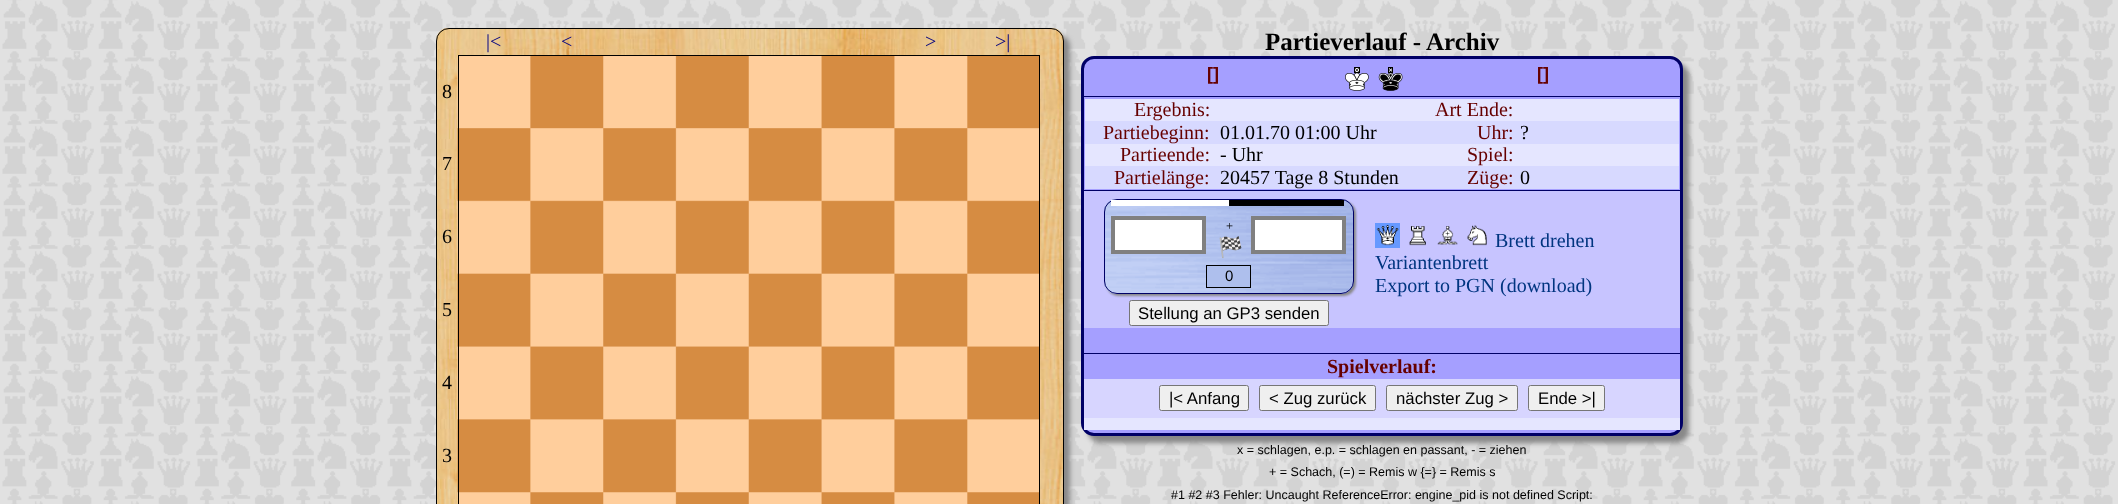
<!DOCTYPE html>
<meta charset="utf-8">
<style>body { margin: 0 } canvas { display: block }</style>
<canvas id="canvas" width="2118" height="504"></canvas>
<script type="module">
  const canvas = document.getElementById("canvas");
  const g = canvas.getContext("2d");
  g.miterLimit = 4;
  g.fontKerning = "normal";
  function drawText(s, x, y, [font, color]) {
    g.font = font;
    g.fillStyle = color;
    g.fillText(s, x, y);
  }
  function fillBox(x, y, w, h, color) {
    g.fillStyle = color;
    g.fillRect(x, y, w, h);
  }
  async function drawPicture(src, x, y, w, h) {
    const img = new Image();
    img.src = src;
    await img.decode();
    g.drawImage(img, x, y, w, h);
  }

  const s1 = ["20px Liberation Serif", "#000080"];
  const s2 = ["20px Liberation Serif", "#000000"];
  const s3 = ["bold 25px Liberation Serif", "#000000"];
  const s4 = ["bold 18px Liberation Sans", "#660000"];
  const s5 = ["20px Liberation Serif", "#660000"];
  const s6 = ["12.5px Liberation Serif", "#000000"];
  const s7 = ["20px Noto Color Emoji", "#000000"];
  const s8 = ["15px Liberation Sans", "#000000"];
  const s9 = ["16.75px Liberation Sans", "#000000"];
  const s10 = ["20px Liberation Serif", "#003580"];
  const s11 = ["bold 20px Liberation Serif", "#660000"];
  const s12 = ["12.5px Liberation Sans", "#000000"];

  fillBox(0, 0, 2118, 504, "#FFFFFF");
  await drawPicture("pic1.png", 0, 0, 2118, 504);
  g.fillStyle = "#888888";
  g.filter = "blur(2.5px)";
  g.beginPath();
  g.roundRect(443, 34, 627, 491, 13);
  g.fill();
  g.filter = "none";
  await drawPicture("pic2.png", 436, 27, 628, 477);
  g.beginPath();
  g.roundRect(436.5, 28.5, 627, 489, 12.5);
  g.strokeStyle = "#000000";
  g.stroke();
  drawText("|<", 486, 48, s1);
  drawText("<", 561, 48, s1);
  drawText(">", 925, 48, s1);
  drawText(">|", 995, 48, s1);
  drawText("8", 442, 98, s2);
  await drawPicture("pic3.png", 457, 55, 582, 449);
  g.strokeRect(458.5, 55.5, 581, 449);
  drawText("7", 442, 170, s2);
  drawText("6", 442, 243, s2);
  drawText("5", 442, 316, s2);
  drawText("4", 442, 389, s2);
  drawText("3", 442, 462, s2);
  drawText("Partieverlauf - Archiv", 1265, 50, s3);
  g.fillStyle = "#888888";
  g.filter = "blur(2.5px)";
  g.beginPath();
  g.roundRect(1088, 63, 601, 380, 13);
  g.fill();
  g.filter = "none";
  g.fillStyle = "#A59FFF";
  g.beginPath();
  g.roundRect(1082.5, 57.5, 599, 377, 11.5);
  g.fill();
  g.strokeStyle = "#000066";
  g.lineWidth = 3;
  g.stroke();
  fillBox(1084, 96, 596, 1, "#000066");
  drawText("[]", 1207, 80, s4);
  await drawPicture("pic4.png", 1345, 67, 24, 24);
  await drawPicture("pic5.png", 1378, 67, 25, 24);
  drawText("[]", 1537, 80, s4);
  fillBox(1084, 190, 596, 1, "#000066");
  fillBox(1085, 99, 594, 67, "#E5E6FF");
  drawText("Ergebnis:", 1134, 116, s5);
  drawText("Art Ende:", 1435, 116, s5);
  fillBox(1085, 121, 594, 23, "#D7D9FF");
  drawText("Partiebeginn:", 1103, 139, s5);
  drawText("01.01.70 01:00 Uhr", 1220, 139, s2);
  drawText("Uhr:", 1477, 139, s5);
  drawText("?", 1520, 139, s2);
  drawText("Partieende:", 1120, 161, s5);
  drawText("- Uhr", 1220, 161, s2);
  drawText("Spiel:", 1467, 161, s5);
  fillBox(1085, 166, 594, 23, "#D7D9FF");
  drawText("Partielänge:", 1114, 184, s5);
  drawText("20457 Tage 8 Stunden", 1220, 184, s2);
  drawText("Züge:", 1467, 184, s5);
  drawText("0", 1520, 184, s2);
  fillBox(1084, 191, 596, 137, "#C7C4FF");
  g.fillStyle = "#888888";
  g.filter = "blur(1px)";
  g.beginPath();
  g.roundRect(1106, 201, 250, 95, 13);
  g.fill();
  g.filter = "none";
  await drawPicture("pic6.png", 1104, 199, 250, 95);
  g.beginPath();
  g.roundRect(1104.5, 199.5, 249, 94, 12.5);
  g.lineWidth = 1;
  g.stroke();
  fillBox(1111, 200, 118, 6, "#FFFFFF");
  fillBox(1229, 200, 115, 6, "#000000");
  g.fillStyle = "#FFFFFF";
  g.beginPath();
  g.rect(1113, 218, 91, 34);
  g.fill();
  g.strokeStyle = "#808080";
  g.lineWidth = 4;
  g.stroke();
  drawText("+", 1226, 230, s6);
  drawText("🏁", 1218, 254, s7);
  g.fillStyle = "#FFFFFF";
  g.beginPath();
  g.rect(1253, 218, 91, 34);
  g.fill();
  g.stroke();
  fillBox(1207, 267, 43, 20, "#AEBFED");
  g.strokeStyle = "#000000";
  g.lineWidth = 1;
  g.strokeRect(1206.5, 265.5, 44, 22);
  drawText("0", 1225, 281, s8);
  g.fillStyle = "#EFEFEF";
  g.beginPath();
  g.roundRect(1129.5, 300.5, 199, 25, 2);
  g.fill();
  g.strokeStyle = "#767676";
  g.stroke();
  drawText("Stellung an GP3 senden", 1138, 319, s9);
  fillBox(1375, 223, 25, 25, "#6699FF");
  await drawPicture("pic7.png", 1376, 225, 23, 21);
  await drawPicture("pic8.png", 1409, 226, 17, 20);
  await drawPicture("pic9.png", 1437, 226, 21, 19);
  await drawPicture("pic10.png", 1467, 225, 20, 21);
  drawText("Brett drehen", 1495, 247, s10);
  drawText("Variantenbrett", 1375, 269, s10);
  drawText("Export to PGN (download)", 1375, 292, s10);
  fillBox(1084, 353, 596, 1, "#000066");
  drawText("Spielverlauf:", 1327, 373, s11);
  fillBox(1084, 379, 596, 39, "#D7D5FF");
  g.fillStyle = "#EFEFEF";
  g.beginPath();
  g.roundRect(1159.5, 385.5, 89, 25, 2);
  g.fill();
  g.stroke();
  drawText("|< Anfang", 1169, 404, s9);
  g.fillStyle = "#EFEFEF";
  g.beginPath();
  g.roundRect(1259.5, 385.5, 116, 25, 2);
  g.fill();
  g.stroke();
  drawText("< Zug zurück", 1269, 404, s9);
  g.fillStyle = "#EFEFEF";
  g.beginPath();
  g.roundRect(1386.5, 385.5, 131, 25, 2);
  g.fill();
  g.stroke();
  drawText("nächster Zug >", 1396, 404, s9);
  g.fillStyle = "#EFEFEF";
  g.beginPath();
  g.roundRect(1528.5, 385.5, 76, 25, 2);
  g.fill();
  g.stroke();
  drawText("Ende >|", 1538, 404, s9);
  fillBox(1084, 418, 596, 12, "#E5E6FF");
  drawText("x = schlagen, e.p. = schlagen en passant, - = ziehen", 1237, 454, s12);
  drawText("+ = Schach, (=) = Remis w {=} = Remis s", 1269, 476, s12);
  drawText("#1 #2 #3 Fehler: Uncaught ReferenceError: engine_pid is not defined Script:", 1171, 499, s12);
</script>
